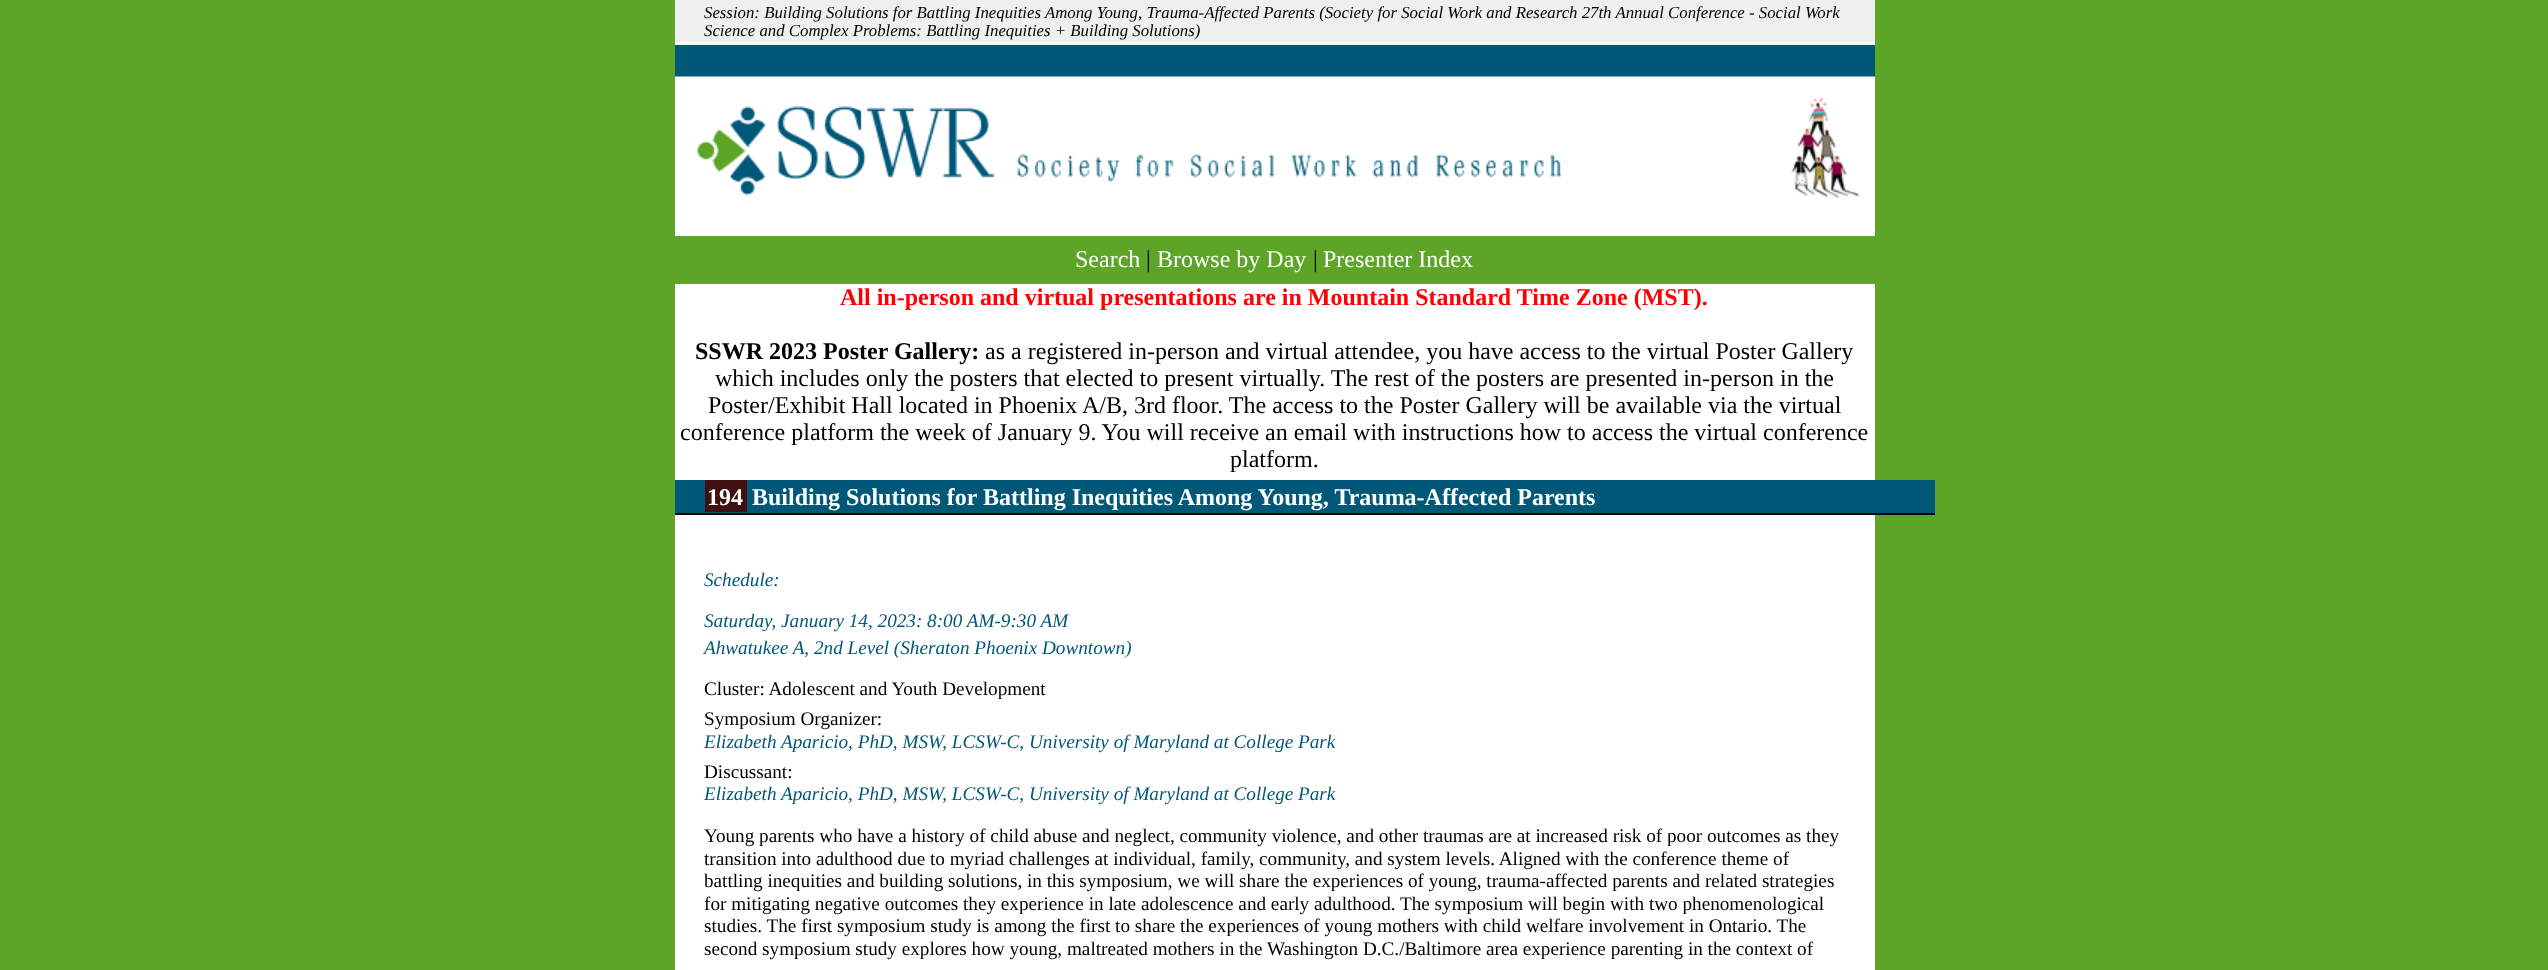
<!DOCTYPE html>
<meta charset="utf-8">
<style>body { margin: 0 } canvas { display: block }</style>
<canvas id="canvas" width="2548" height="970"></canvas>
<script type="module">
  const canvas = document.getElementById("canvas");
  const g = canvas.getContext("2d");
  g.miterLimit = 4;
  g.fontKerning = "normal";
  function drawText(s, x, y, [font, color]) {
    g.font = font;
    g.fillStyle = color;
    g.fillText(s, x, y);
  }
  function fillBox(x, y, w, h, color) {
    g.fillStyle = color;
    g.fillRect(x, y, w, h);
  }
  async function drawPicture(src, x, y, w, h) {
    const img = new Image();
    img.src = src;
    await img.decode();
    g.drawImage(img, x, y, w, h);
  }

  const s1 = ["italic 16.8px Liberation Serif", "#000000"];
  const s2 = ["24px Liberation Serif", "#FFFFFF"];
  const s3 = ["24px Liberation Serif", "#000000"];
  const s4 = ["bold 24px Liberation Serif", "#FF0000"];
  const s5 = ["bold 24px Liberation Serif", "#000000"];
  const s6 = ["bold 24px Liberation Serif", "#FFFFFF"];
  const s7 = ["italic 19.2px Liberation Serif", "#005879"];
  const s8 = ["19.2px Liberation Serif", "#000000"];

  fillBox(0, 0, 2548, 970, "#5CA526");
  fillBox(675, 199, 1200, 771, "#FFFFFF");
  fillBox(675, 0, 1200, 42, "#EFEFEF");
  fillBox(675, 42, 1200, 3, "#FFFFFF");
  drawText("Session: Building Solutions for Battling Inequities Among Young, Trauma-Affected Parents (Society for Social Work and Research 27th Annual Conference - Social Work", 704, 18, s1);
  drawText("Science and Complex Problems: Battling Inequities + Building Solutions)", 704, 36, s1);
  await drawPicture("pic1.png", 675, 45, 1200, 154);
  fillBox(675, 236, 1200, 48, "#5CA526");
  drawText("Search", 1075, 267, s2);
  drawText("|", 1146, 267, s3);
  drawText("Browse by Day", 1157, 267, s2);
  drawText("|", 1313, 267, s3);
  drawText("Presenter Index", 1323, 267, s2);
  drawText("All in-person and virtual presentations are in Mountain Standard Time Zone (MST).", 840, 305, s4);
  drawText("SSWR 2023 Poster Gallery:", 695, 359, s5);
  drawText("as a registered in-person and virtual attendee, you have access to the virtual Poster Gallery", 985, 359, s3);
  drawText("which includes only the posters that elected to present virtually. The rest of the posters are presented in-person in the", 715, 386, s3);
  drawText("Poster/Exhibit Hall located in Phoenix A/B, 3rd floor. The access to the Poster Gallery will be available via the virtual", 708, 413, s3);
  drawText("conference platform the week of January 9. You will receive an email with instructions how to access the virtual conference", 680, 440, s3);
  drawText("platform.", 1230, 467, s3);
  fillBox(675, 480, 1260, 33, "#005879");
  fillBox(675, 513, 1260, 2, "#000000");
  fillBox(705, 480, 42, 32, "#401010");
  drawText("194", 707, 505, s6);
  drawText("Building Solutions for Battling Inequities Among Young, Trauma-Affected Parents", 752, 505, s6);
  drawText("Schedule:", 704, 586, s7);
  drawText("Saturday, January 14, 2023: 8:00 AM-9:30 AM", 704, 627, s7);
  drawText("Ahwatukee A, 2nd Level (Sheraton Phoenix Downtown)", 704, 654, s7);
  drawText("Cluster: Adolescent and Youth Development", 704, 695, s8);
  drawText("Symposium Organizer:", 704, 725, s8);
  drawText("Elizabeth Aparicio, PhD, MSW, LCSW-C, University of Maryland at College Park", 704, 748, s7);
  drawText("Discussant:", 704, 778, s8);
  drawText("Elizabeth Aparicio, PhD, MSW, LCSW-C, University of Maryland at College Park", 704, 800, s7);
  drawText("Young parents who have a history of child abuse and neglect, community violence, and other traumas are at increased risk of poor outcomes as they", 704, 842, s8);
  drawText("transition into adulthood due to myriad challenges at individual, family, community, and system levels. Aligned with the conference theme of", 704, 865, s8);
  drawText("battling inequities and building solutions, in this symposium, we will share the experiences of young, trauma-affected parents and related strategies", 704, 887, s8);
  drawText("for mitigating negative outcomes they experience in late adolescence and early adulthood. The symposium will begin with two phenomenological", 704, 910, s8);
  drawText("studies. The first symposium study is among the first to share the experiences of young mothers with child welfare involvement in Ontario. The", 704, 932, s8);
  drawText("second symposium study explores how young, maltreated mothers in the Washington D.C./Baltimore area experience parenting in the context of", 704, 955, s8);
</script>
